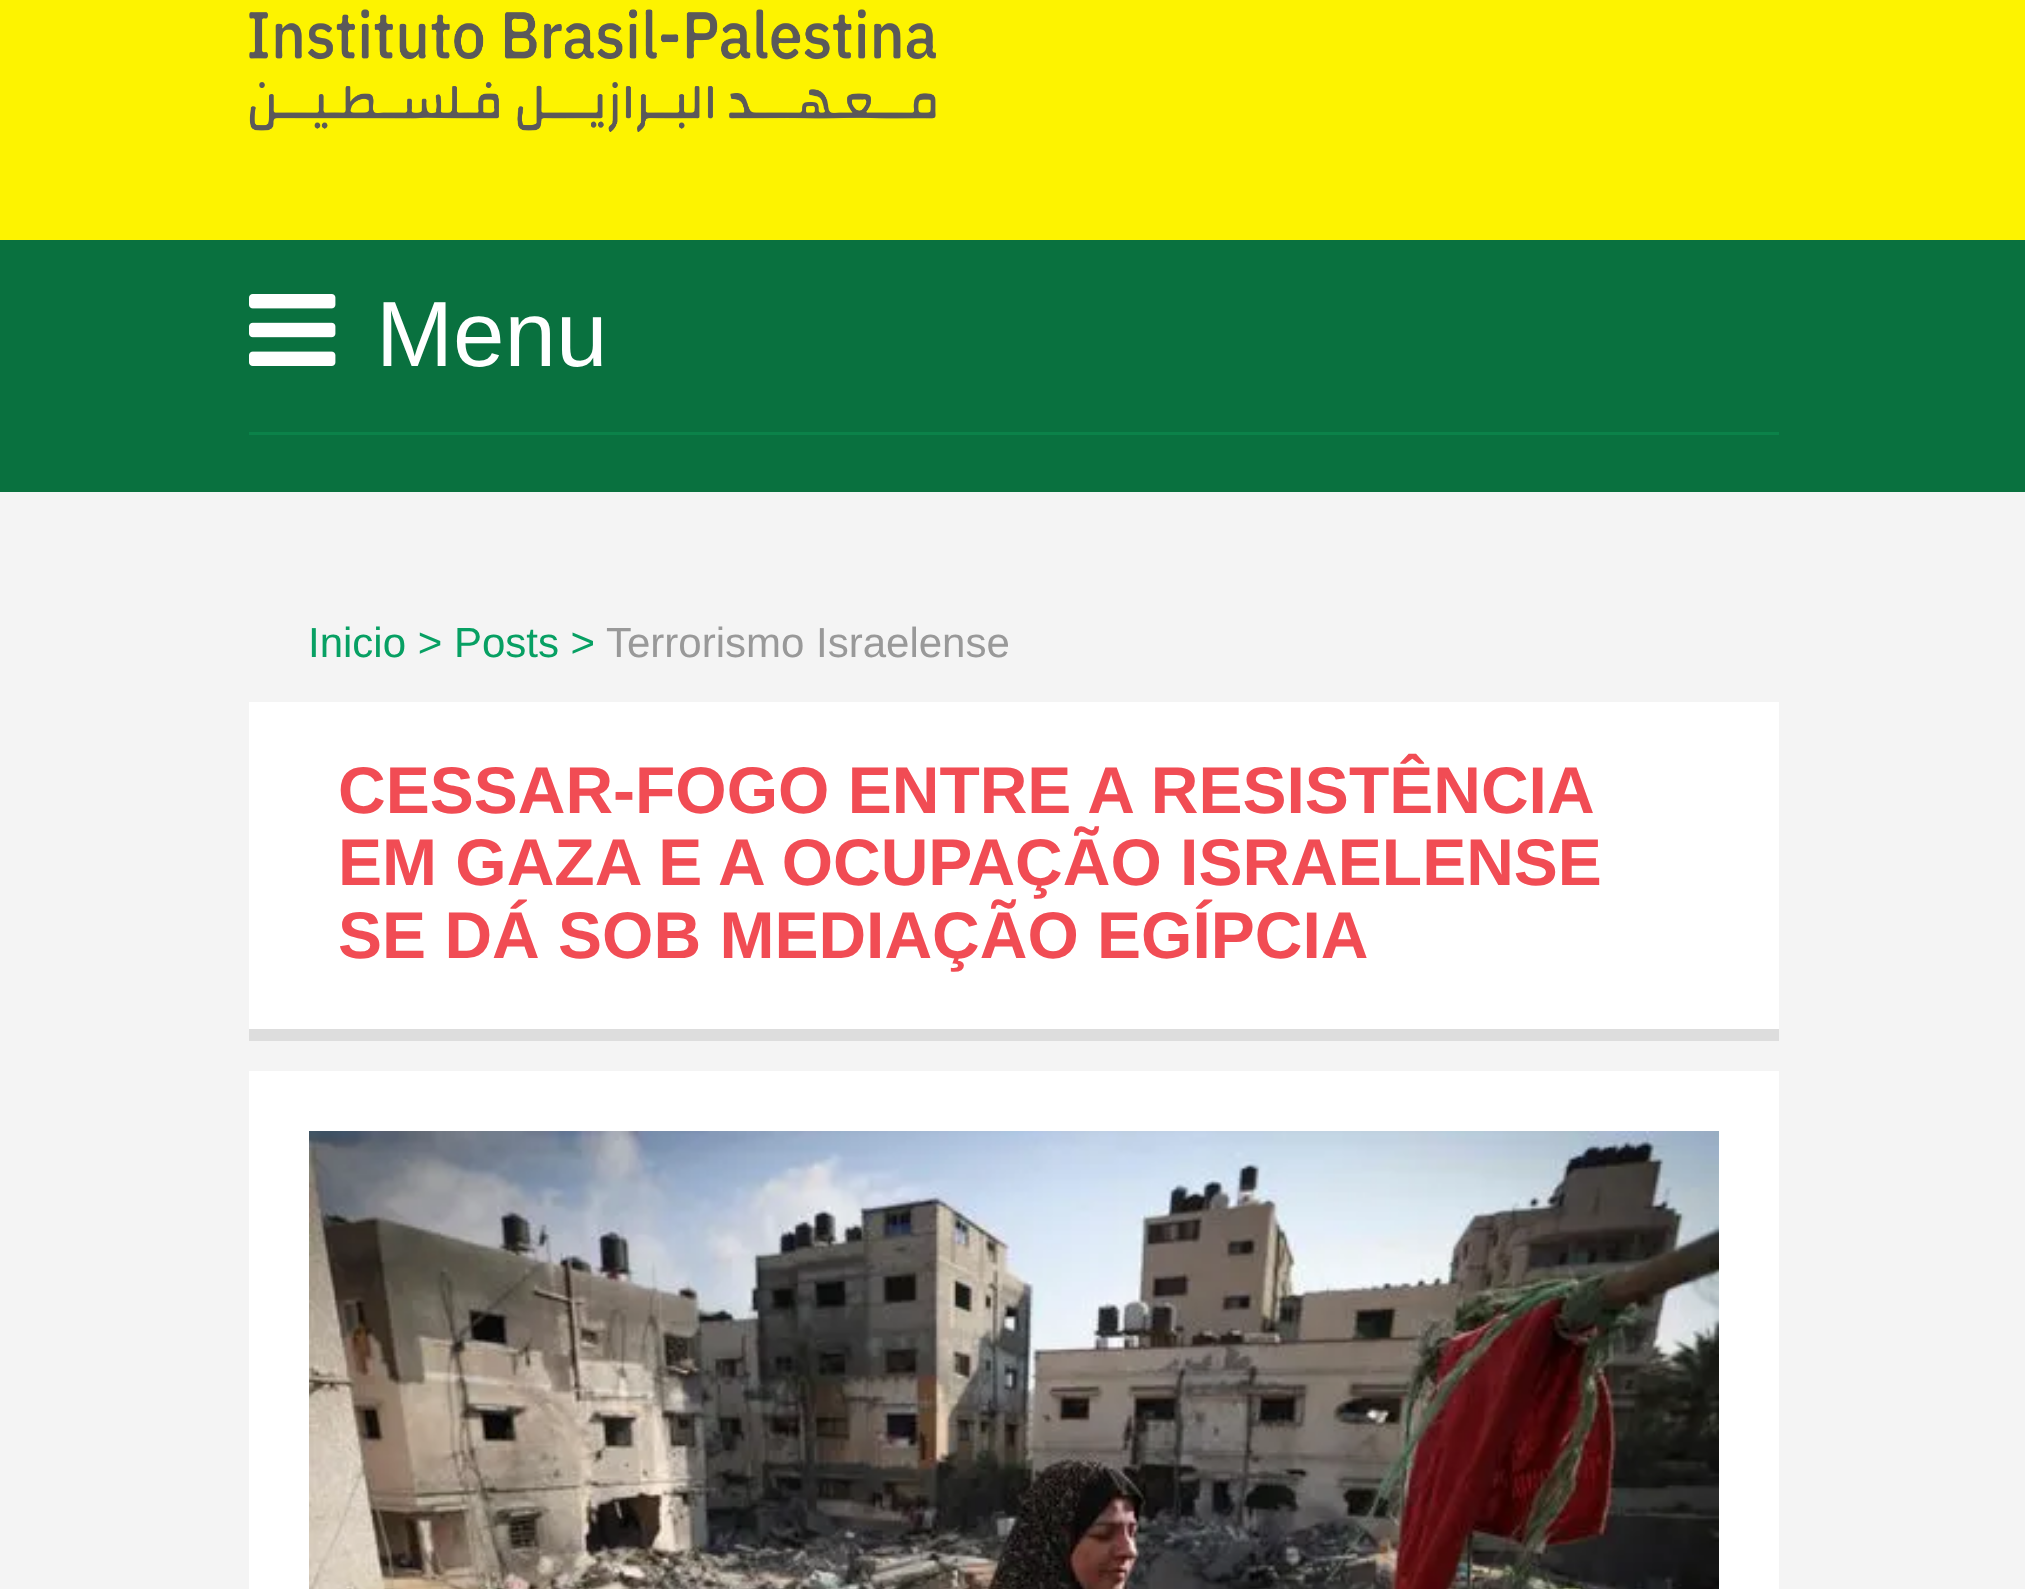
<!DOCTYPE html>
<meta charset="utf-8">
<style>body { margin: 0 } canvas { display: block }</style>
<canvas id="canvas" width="2025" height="1589"></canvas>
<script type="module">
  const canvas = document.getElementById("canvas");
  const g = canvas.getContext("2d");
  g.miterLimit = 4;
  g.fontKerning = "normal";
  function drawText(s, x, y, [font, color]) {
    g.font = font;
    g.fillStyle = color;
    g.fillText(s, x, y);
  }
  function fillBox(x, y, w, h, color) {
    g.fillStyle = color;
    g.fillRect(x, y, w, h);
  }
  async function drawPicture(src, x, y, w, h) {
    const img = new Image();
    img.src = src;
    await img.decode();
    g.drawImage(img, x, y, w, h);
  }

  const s1 = ["92.5px Liberation Sans", "#FFFFFF"];
  const s2 = ["42px Liberation Sans", "#07A063"];
  const s3 = ["42px Liberation Sans", "#999999"];
  const s4 = ["bold 66px Liberation Sans", "#F14C54"];

  fillBox(0, 0, 2025, 1589, "#FDF300");
  await drawPicture("pic1.png", 249, 9, 687, 123);
  fillBox(0, 240, 2025, 252, "#09713F");
  await drawPicture("pic2.png", 249, 294, 87, 72);
  drawText("Menu", 376, 366, s1);
  fillBox(249, 432, 1530, 3, "#0B8249");
  fillBox(0, 492, 2025, 1097, "#F4F4F4");
  drawText("Inicio > Posts >", 308, 657, s2);
  drawText("Terrorismo Israelense", 606, 657, s3);
  fillBox(249, 702, 1530, 327, "#FFFFFF");
  fillBox(249, 1029, 1530, 12, "#DDDDDD");
  drawText("CESSAR-FOGO ENTRE A RESISTÊNCIA", 338, 813, s4);
  drawText("EM GAZA E A OCUPAÇÃO ISRAELENSE", 338, 885, s4);
  drawText("SE DÁ SOB MEDIAÇÃO EGÍPCIA", 338, 958, s4);
  fillBox(249, 1071, 1530, 518, "#FFFFFF");
  await drawPicture("pic3.png", 309, 1131, 1410, 458);
</script>
